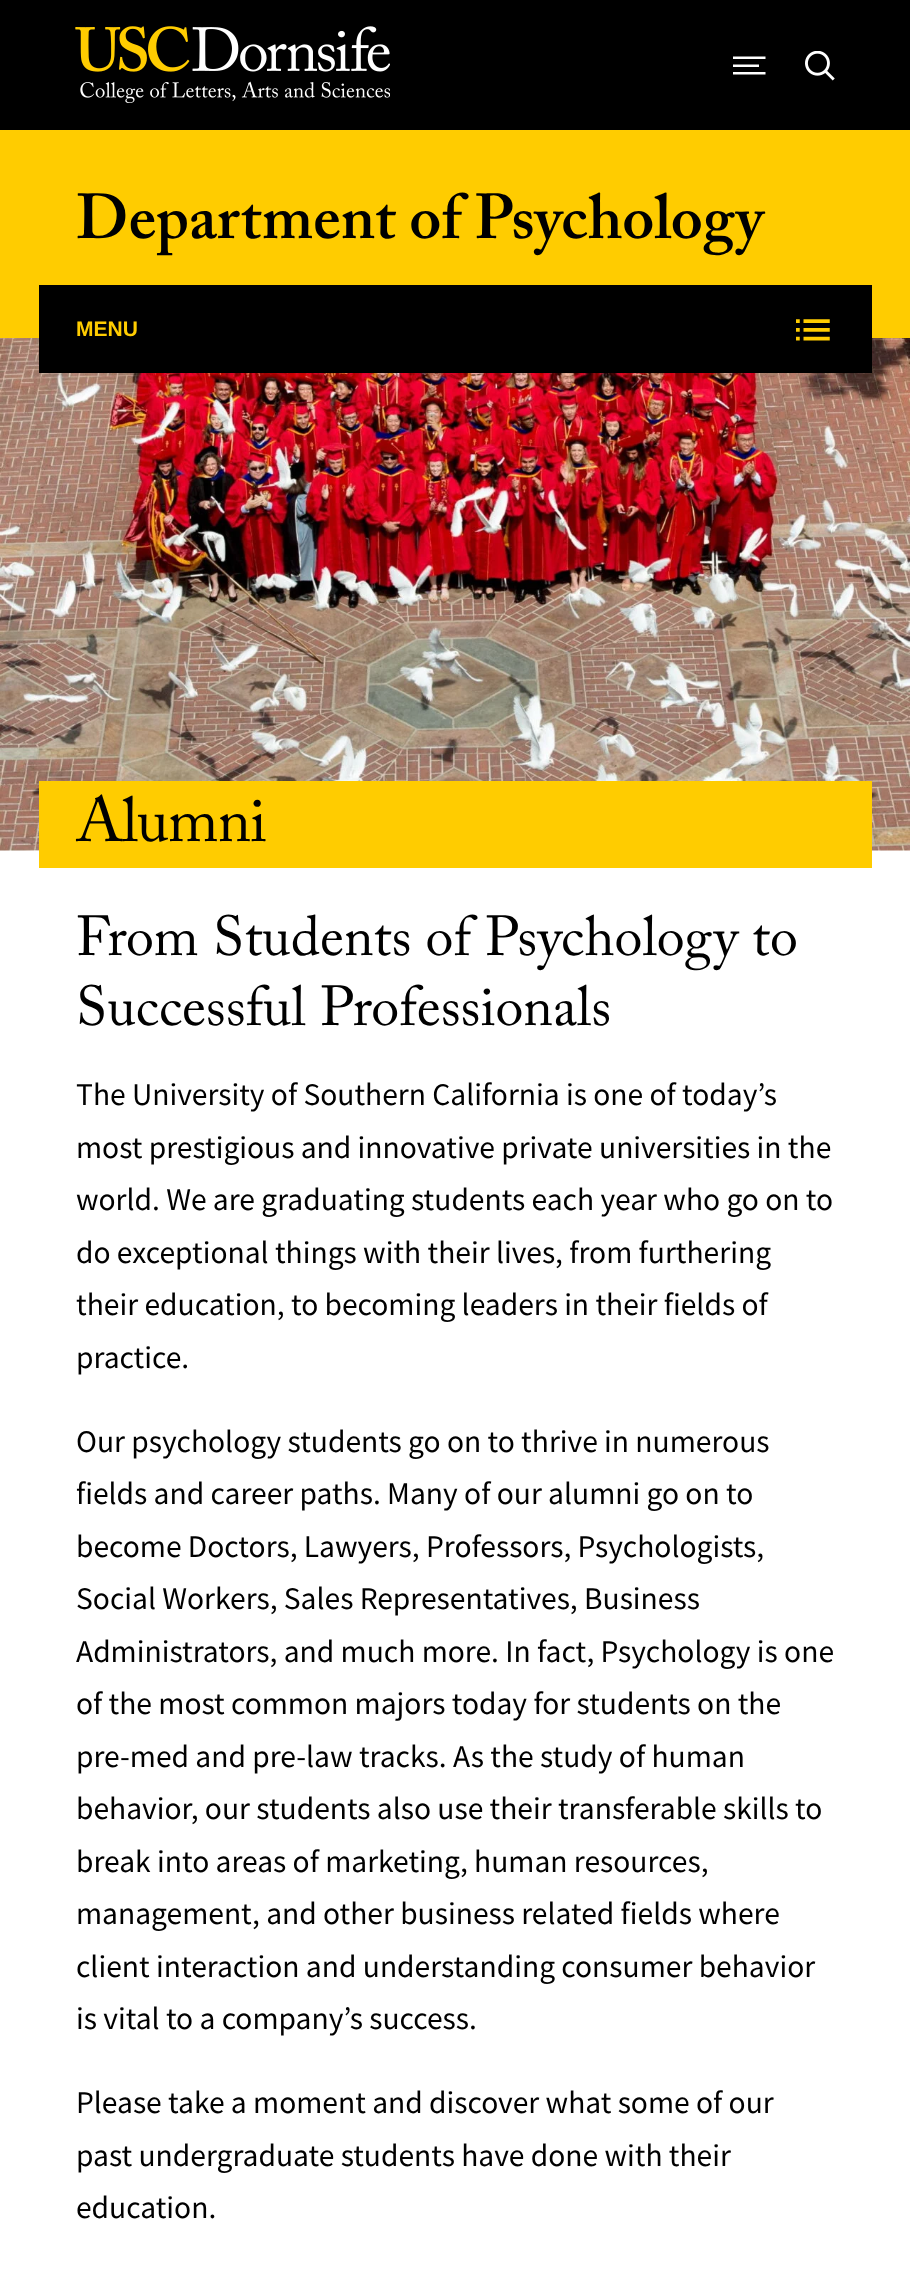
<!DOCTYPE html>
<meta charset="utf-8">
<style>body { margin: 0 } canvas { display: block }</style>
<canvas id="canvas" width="910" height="2288"></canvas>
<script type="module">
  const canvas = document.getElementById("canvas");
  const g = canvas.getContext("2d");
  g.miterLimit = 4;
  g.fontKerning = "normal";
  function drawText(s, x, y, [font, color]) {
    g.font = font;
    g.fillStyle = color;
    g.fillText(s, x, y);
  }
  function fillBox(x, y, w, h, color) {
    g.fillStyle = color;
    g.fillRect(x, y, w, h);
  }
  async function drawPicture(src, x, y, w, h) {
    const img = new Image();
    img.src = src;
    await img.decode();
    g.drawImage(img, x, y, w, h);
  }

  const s1 = ["600 63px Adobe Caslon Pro", "#000000"];
  const s2 = ["bold 21px Liberation Sans", "#FFCC00"];
  const s3 = ["63px Adobe Caslon Pro", "#000000"];
  const s4 = ["56px Adobe Caslon Pro", "#000000"];
  const s5 = ["31.5px Source Sans Pro", "#000000"];

  fillBox(0, 0, 910, 2288, "#FFFFFF");
  fillBox(0, 0, 910, 130, "#000000");
  await drawPicture("pic1.png", 75, 26, 315, 77);
  g.fillStyle = "#FFFFFF";
  g.beginPath();
  g.moveTo(765.5, 72);
  g.lineTo(765.5, 74.5);
  g.lineTo(733, 74.5);
  g.lineTo(733, 72);
  g.closePath();
  g.moveTo(759, 64.5);
  g.lineTo(759, 67);
  g.lineTo(733, 67);
  g.lineTo(733, 64.5);
  g.closePath();
  g.moveTo(765.5, 56.5);
  g.lineTo(765.5, 59);
  g.lineTo(733, 59);
  g.lineTo(733, 56.5);
  g.closePath();
  g.fill("evenodd");
  await drawPicture("pic2.png", 805, 51, 30, 30);
  fillBox(0, 130, 910, 208, "#FFCC00");
  drawText("Department of Psychology", 76, 238, s1);
  await drawPicture("pic4.png", 0, 338, 910, 513);
  fillBox(39, 285, 833, 88, "#000000");
  drawText("MENU", 76, 336, s2);
  await drawPicture("pic3.png", 796, 319, 34, 22);
  fillBox(39, 781, 833, 87, "#FFCC00");
  g.letterSpacing = "-1px";
  drawText("Alumni", 76, 841, s3);
  g.letterSpacing = "0px";
  drawText("From Students of Psychology to", 76, 955, s4);
  drawText("Successful Professionals", 76, 1025, s4);
  drawText("The University of Southern California is one of today’s", 76, 1105, s5);
  drawText("most prestigious and innovative private universities in the", 76, 1158, s5);
  drawText("world. We are graduating students each year who go on to", 76, 1210, s5);
  drawText("do exceptional things with their lives, from furthering", 76, 1263, s5);
  drawText("their education, to becoming leaders in their fields of", 76, 1315, s5);
  drawText("practice.", 76, 1368, s5);
  drawText("Our psychology students go on to thrive in numerous", 76, 1452, s5);
  drawText("fields and career paths. Many of our alumni go on to", 76, 1504, s5);
  drawText("become Doctors, Lawyers, Professors, Psychologists,", 76, 1557, s5);
  drawText("Social Workers, Sales Representatives, Business", 76, 1609, s5);
  drawText("Administrators, and much more. In fact, Psychology is one", 76, 1662, s5);
  drawText("of the most common majors today for students on the", 76, 1714, s5);
  drawText("pre-med and pre-law tracks. As the study of human", 76, 1767, s5);
  drawText("behavior, our students also use their transferable skills to", 76, 1819, s5);
  drawText("break into areas of marketing, human resources,", 76, 1872, s5);
  drawText("management, and other business related fields where", 76, 1924, s5);
  drawText("client interaction and understanding consumer behavior", 76, 1977, s5);
  drawText("is vital to a company’s success.", 76, 2029, s5);
  drawText("Please take a moment and discover what some of our", 76, 2113, s5);
  drawText("past undergraduate students have done with their", 76, 2166, s5);
  drawText("education.", 76, 2218, s5);
</script>
